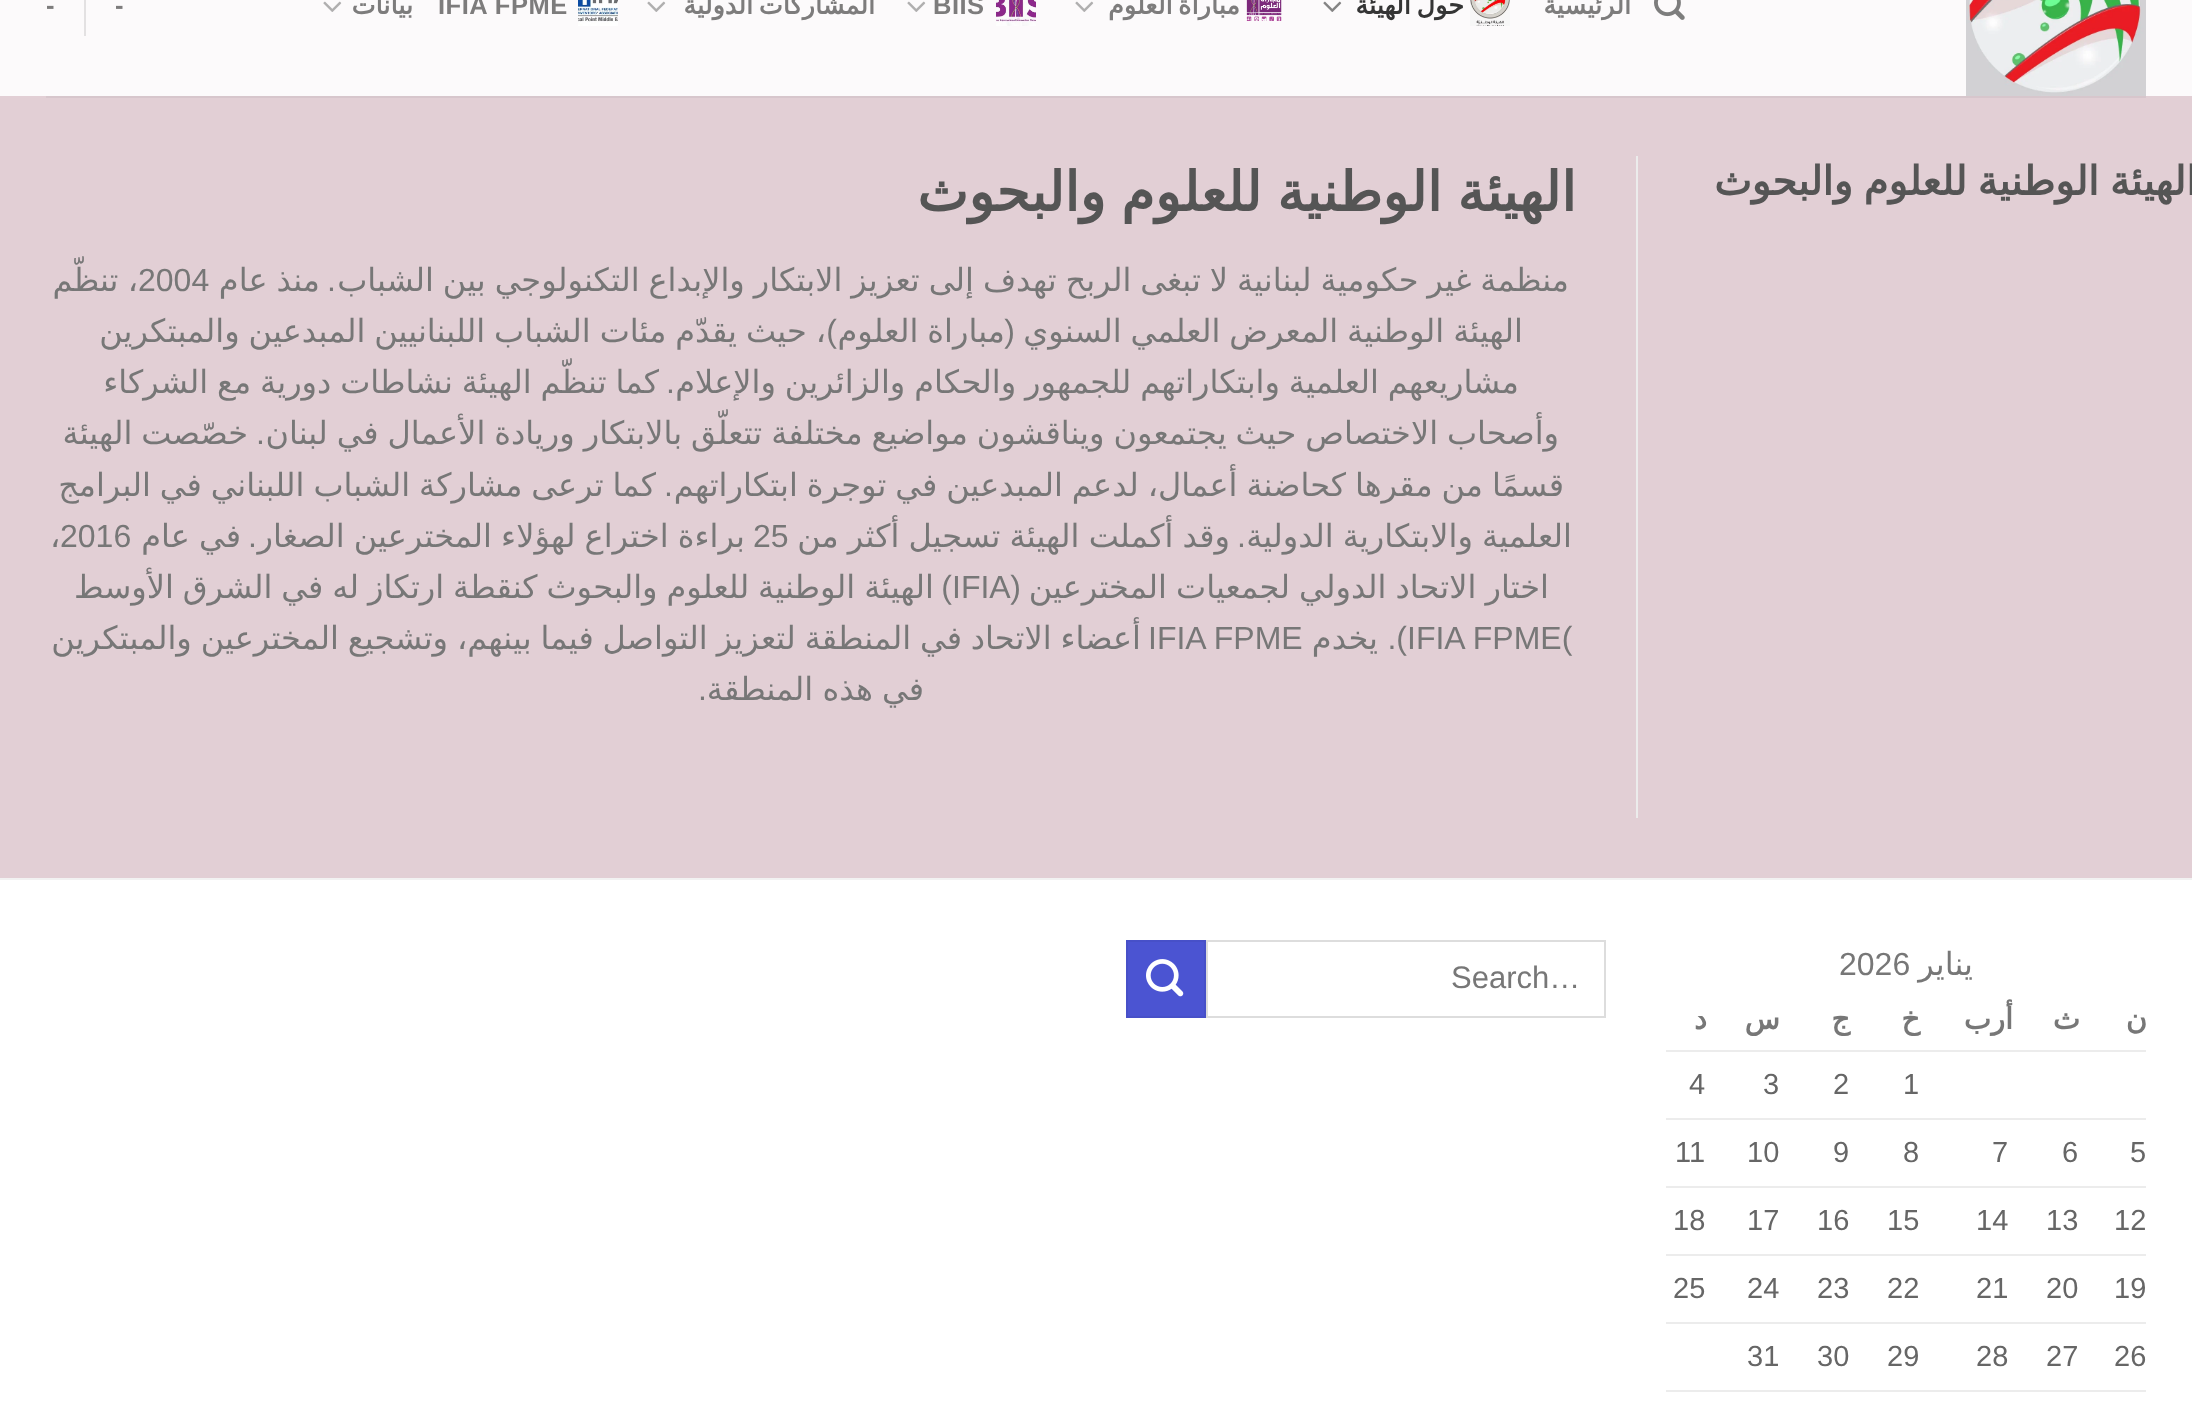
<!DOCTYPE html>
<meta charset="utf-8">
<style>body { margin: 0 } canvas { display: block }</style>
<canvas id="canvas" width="2192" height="1418"></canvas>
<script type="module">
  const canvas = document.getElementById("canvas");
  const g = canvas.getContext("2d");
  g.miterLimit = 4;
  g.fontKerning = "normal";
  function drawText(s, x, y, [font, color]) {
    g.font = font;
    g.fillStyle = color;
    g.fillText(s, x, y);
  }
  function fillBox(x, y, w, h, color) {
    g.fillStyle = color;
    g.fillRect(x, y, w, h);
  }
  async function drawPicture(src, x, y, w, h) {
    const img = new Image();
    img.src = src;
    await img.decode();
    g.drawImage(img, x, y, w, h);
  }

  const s1 = ["bold 25.5px DejaVu Sans", "#7D7C7C"];
  const s2 = ["bold 25.5px DejaVu Sans", "#353535"];
  const s3 = ["bold 25.5px Liberation Sans", "#7D7C7C"];
  const s4 = ["bold 40px DejaVu Sans", "#555555"];
  const s5 = ["bold 54.4px DejaVu Sans", "#555555"];
  const s6 = ["32px DejaVu Sans", "#777777"];
  const s7 = ["32px Liberation Sans", "#777777"];
  const s8 = ["bold 29px DejaVu Sans", "#777777"];
  const s9 = ["29px Liberation Sans", "#666666"];
  const s10 = ["31px Liberation Sans", "#777777"];

  fillBox(0, 0, 2192, 1418, "#E2CFD5");
  fillBox(0, 0, 2192, 96, "#FCFAFB");
  await drawPicture("pic1.png", 1966, 0, 180, 96);
  await drawPicture("pic2.png", 1654, 0, 31, 20);
  g.letterSpacing = "0.5px";
  g.direction = "rtl";
  drawText("الرئيسية", 1631, 14, s1);
  await drawPicture("pic3.png", 1470, 0, 40, 26);
  g.wordSpacing = "-3px";
  drawText("حول الهيئة", 1464, 14, s2);
  await drawPicture("pic4.png", 1323, 1, 19, 11);
  await drawPicture("pic5.png", 1246, 0, 36, 21);
  drawText("مباراة العلوم", 1240, 14, s1);
  await drawPicture("pic6.png", 1075, 1, 19, 11);
  await drawPicture("pic7.png", 996, 0, 40, 26);
  g.wordSpacing = "0px";
  g.direction = "ltr";
  drawText("BIIS", 933, 14, s3);
  await drawPicture("pic6.png", 907, 1, 19, 11);
  g.wordSpacing = "-3px";
  g.direction = "rtl";
  drawText("المشاركات الدولية", 875, 14, s1);
  await drawPicture("pic6.png", 647, 1, 19, 11);
  await drawPicture("pic8.png", 578, 0, 40, 26);
  g.wordSpacing = "0px";
  g.direction = "ltr";
  drawText("IFIA FPME", 438, 14, s3);
  g.direction = "rtl";
  drawText("بيانات", 413, 14, s1);
  await drawPicture("pic6.png", 323, 1, 19, 11);
  g.direction = "ltr";
  drawText("-", 115, 14, s3);
  fillBox(84, 0, 2, 36, "#E3E1E2");
  drawText("-", 46, 14, s3);
  fillBox(46, 96, 2100, 2, "#D7C6CC");
  fillBox(1636, 156, 2, 662, "#ECECEC");
  g.letterSpacing = "2px";
  g.wordSpacing = "-4px";
  g.direction = "rtl";
  drawText("الهيئة الوطنية للعلوم والبحوث", 2197, 195, s4);
  g.letterSpacing = "0px";
  g.wordSpacing = "-2px";
  drawText("الهيئة الوطنية للعلوم والبحوث", 1576, 211, s5);
  g.wordSpacing = "-1.25px";
  drawText("منظمة غير حكومية لبنانية لا تبغى الربح تهدف إلى تعزيز الابتكار والإبداع التكنولوجي بين الشباب", 1569, 291, s6);
  g.wordSpacing = "0px";
  drawText(".", 336, 291, s7);
  g.wordSpacing = "-1.25px";
  drawText("منذ عام", 320, 291, s6);
  g.wordSpacing = "0px";
  g.direction = "ltr";
  drawText("2004", 138, 291, s7);
  g.wordSpacing = "-1px";
  g.direction = "rtl";
  drawText("، تنظّم", 138, 291, s6);
  g.wordSpacing = "-1.25px";
  drawText("الهيئة الوطنية المعرض العلمي السنوي", 1523, 342, s6);
  drawText("مباراة العلوم", 1005, 342, s6);
  drawText("، حيث يقدّم مئات الشباب اللبنانيين المبدعين والمبتكرين", 826, 342, s6);
  g.wordSpacing = "0px";
  drawText("(", 1015, 342, s7);
  drawText(")", 837, 342, s7);
  g.wordSpacing = "-1.25px";
  drawText("مشاريعهم العلمية وابتكاراتهم للجمهور والحكام والزائرين والإعلام", 1519, 393, s6);
  g.wordSpacing = "0px";
  drawText(".", 675, 393, s7);
  g.wordSpacing = "-1.25px";
  drawText("كما تنظّم الهيئة نشاطات دورية مع الشركاء", 659, 393, s6);
  drawText("وأصحاب الاختصاص حيث يجتمعون ويناقشون مواضيع مختلفة تتعلّق بالابتكار وريادة الأعمال في لبنان", 1559, 444, s6);
  g.wordSpacing = "0px";
  drawText(".", 265, 444, s7);
  g.wordSpacing = "-1.25px";
  drawText("خصّصت الهيئة", 248, 444, s6);
  drawText("قسمًا من مقرها كحاضنة أعمال، لدعم المبدعين في توجرة ابتكاراتهم", 1564, 496, s6);
  g.wordSpacing = "0px";
  drawText(".", 673, 496, s7);
  g.wordSpacing = "-1.25px";
  drawText("كما ترعى مشاركة الشباب اللبناني في البرامج", 656, 496, s6);
  g.wordSpacing = "-1px";
  drawText("العلمية والابتكارية الدولية", 1572, 547, s6);
  g.wordSpacing = "0px";
  drawText(".", 1246, 547, s7);
  g.wordSpacing = "-1px";
  drawText("وقد أكملت الهيئة تسجيل أكثر من", 1230, 547, s6);
  g.wordSpacing = "0px";
  g.direction = "ltr";
  drawText("25", 753, 547, s7);
  g.wordSpacing = "-1px";
  g.direction = "rtl";
  drawText("براءة اختراع لهؤلاء المخترعين الصغار", 745, 547, s6);
  g.wordSpacing = "0px";
  drawText(".", 257, 547, s7);
  g.wordSpacing = "-1px";
  drawText("في عام", 241, 547, s6);
  g.wordSpacing = "0px";
  g.direction = "ltr";
  drawText("2016", 60, 547, s7);
  drawText("،", 50, 547, s6);
  g.wordSpacing = "-1px";
  g.direction = "rtl";
  drawText("اختار الاتحاد الدولي لجمعيات المخترعين", 1549, 598, s6);
  g.wordSpacing = "0px";
  drawText("(", 1021, 598, s7);
  g.direction = "ltr";
  drawText("IFIA", 952, 598, s7);
  g.direction = "rtl";
  drawText(")", 952, 598, s7);
  g.wordSpacing = "-1.25px";
  drawText("الهيئة الوطنية للعلوم والبحوث كنقطة ارتكاز له في الشرق الأوسط", 934, 598, s6);
  g.wordSpacing = "0px";
  g.direction = "ltr";
  drawText("IFIA FPME(", 1407, 649, s7);
  g.direction = "rtl";
  drawText(").", 1407, 649, s7);
  drawText("يخدم", 1378, 649, s6);
  g.direction = "ltr";
  drawText("IFIA FPME", 1148, 649, s7);
  g.wordSpacing = "-1.25px";
  g.direction = "rtl";
  drawText("أعضاء الاتحاد في المنطقة لتعزيز التواصل فيما بينهم، وتشجيع المخترعين والمبتكرين", 1141, 649, s6);
  g.wordSpacing = "-1px";
  drawText("في هذه المنطقة", 924, 700, s6);
  g.wordSpacing = "0px";
  drawText(".", 707, 700, s7);
  fillBox(0, 880, 2192, 538, "#FFFFFF");
  fillBox(0, 878, 2192, 2, "#F2F2F2");
  drawText("يناير", 1973, 975, s6);
  g.direction = "ltr";
  drawText("2026", 1839, 975, s7);
  fillBox(1666, 1050, 480, 2, "#ECECEC");
  g.letterSpacing = "1.5px";
  g.direction = "rtl";
  drawText("ن", 2147, 1029, s8);
  drawText("ث", 2080, 1029, s8);
  drawText("أرب", 2013, 1029, s8);
  drawText("خ", 1920, 1029, s8);
  drawText("ج", 1850, 1029, s8);
  drawText("س", 1780, 1029, s8);
  drawText("د", 1707, 1029, s8);
  g.letterSpacing = "0px";
  g.direction = "ltr";
  drawText("1", 1903, 1094, s9);
  drawText("2", 1833, 1094, s9);
  drawText("3", 1763, 1094, s9);
  drawText("4", 1689, 1094, s9);
  fillBox(1666, 1118, 480, 2, "#ECECEC");
  fillBox(1666, 1186, 480, 2, "#ECECEC");
  drawText("5", 2130, 1162, s9);
  drawText("6", 2062, 1162, s9);
  drawText("7", 1992, 1162, s9);
  drawText("8", 1903, 1162, s9);
  drawText("9", 1833, 1162, s9);
  drawText("10", 1747, 1162, s9);
  drawText("11", 1675, 1162, s9);
  fillBox(1666, 1254, 480, 2, "#ECECEC");
  drawText("12", 2114, 1230, s9);
  drawText("13", 2046, 1230, s9);
  drawText("14", 1976, 1230, s9);
  drawText("15", 1887, 1230, s9);
  drawText("16", 1817, 1230, s9);
  drawText("17", 1747, 1230, s9);
  drawText("18", 1673, 1230, s9);
  fillBox(1666, 1322, 480, 2, "#ECECEC");
  drawText("19", 2114, 1298, s9);
  drawText("20", 2046, 1298, s9);
  drawText("21", 1976, 1298, s9);
  drawText("22", 1887, 1298, s9);
  drawText("23", 1817, 1298, s9);
  drawText("24", 1747, 1298, s9);
  drawText("25", 1673, 1298, s9);
  fillBox(1666, 1390, 480, 2, "#ECECEC");
  drawText("26", 2114, 1366, s9);
  drawText("27", 2046, 1366, s9);
  drawText("28", 1976, 1366, s9);
  drawText("29", 1887, 1366, s9);
  drawText("30", 1817, 1366, s9);
  drawText("31", 1747, 1366, s9);
  g.strokeStyle = "#DDDDDD";
  g.lineWidth = 2;
  g.strokeRect(1207, 941, 398, 76);
  drawText("Search…", 1451, 988, s10);
  g.fillStyle = "#4B54D2";
  g.beginPath();
  g.rect(1127, 941, 78, 76);
  g.fill();
  g.strokeStyle = "#4750C8";
  g.stroke();
  await drawPicture("pic9.png", 1146, 959, 38, 38);
</script>
